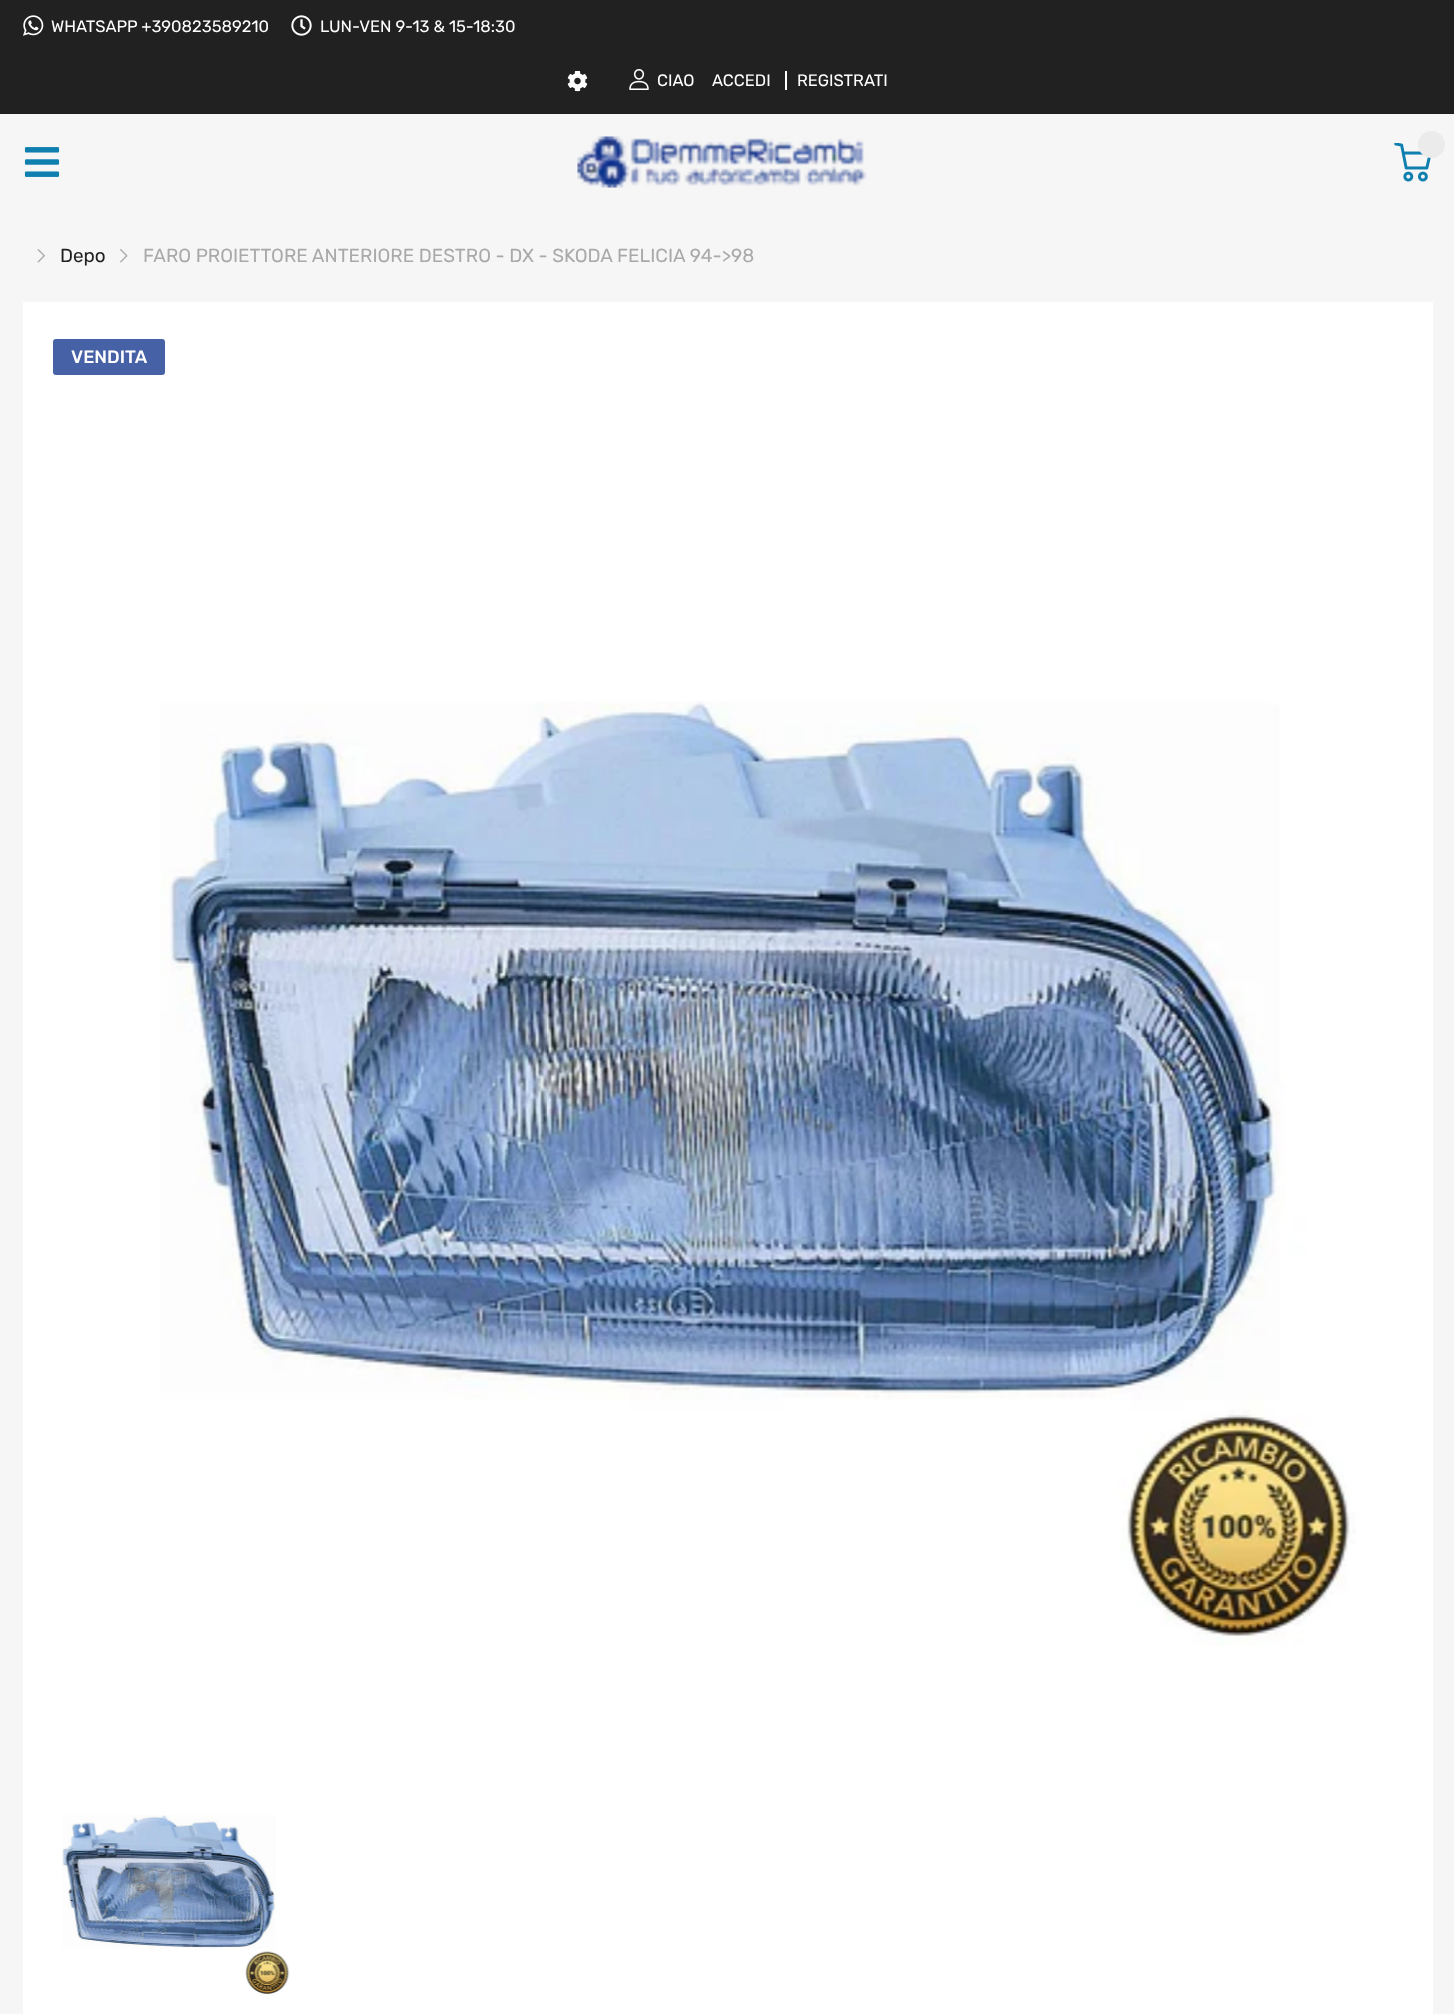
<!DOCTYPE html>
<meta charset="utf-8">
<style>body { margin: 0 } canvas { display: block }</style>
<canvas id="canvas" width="1454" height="2014"></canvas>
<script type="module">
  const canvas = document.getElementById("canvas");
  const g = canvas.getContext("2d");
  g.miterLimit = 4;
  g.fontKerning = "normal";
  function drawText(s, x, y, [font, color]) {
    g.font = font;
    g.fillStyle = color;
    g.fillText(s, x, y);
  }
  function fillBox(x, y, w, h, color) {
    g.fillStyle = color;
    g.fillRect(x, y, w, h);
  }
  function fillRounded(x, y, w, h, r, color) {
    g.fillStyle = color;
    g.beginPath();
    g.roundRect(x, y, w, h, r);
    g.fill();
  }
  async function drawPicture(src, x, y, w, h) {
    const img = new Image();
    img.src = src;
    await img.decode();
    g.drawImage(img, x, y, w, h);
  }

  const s1 = ["16.5px Rubik", "#FFFFFF"];
  const s2 = ["18.9px Rubik", "#212121"];
  const s3 = ["18.9px Rubik", "#A9A9A9"];
  const s4 = ["500 18px Rubik", "#FFFFFF"];

  fillBox(0, 0, 1454, 2014, "#F6F6F6");
  fillBox(0, 0, 1454, 113, "#212121");
  fillBox(0, 113, 1454, 1, "#1E1E1E");
  await drawPicture("pic1.png", 23, 15, 21, 21);
  drawText("WHATSAPP +390823589210", 51, 32, s1);
  await drawPicture("pic2.png", 291, 15, 21, 21);
  drawText("LUN-VEN 9-13 & 15-18:30", 320, 32, s1);
  await drawPicture("pic3.png", 567, 71, 21, 21);
  await drawPicture("pic4.png", 629, 69, 20, 21);
  drawText("CIAO", 657, 86, s1);
  drawText("ACCEDI", 712, 86, s1);
  drawText("REGISTRATI", 797, 86, s1);
  fillBox(785, 71, 2, 19, "#FFFFFF");
  await drawPicture("pic5.png", 24, 147, 36, 30);
  await drawPicture("pic6.png", 577, 136, 290, 52);
  await drawPicture("pic7.png", 1394, 143, 37, 39);
  g.fillStyle = "#EBEBEB";
  g.beginPath();
  g.arc(1431.5, 144.5, 13.5, 0, Math.PI * 2);
  g.fill();
  await drawPicture("pic8.png", 37, 249, 8, 14);
  drawText("Depo", 60, 262, s2);
  await drawPicture("pic9.png", 120, 249, 8, 14);
  drawText("FARO PROIETTORE ANTERIORE DESTRO - DX - SKODA FELICIA 94->98", 143, 262, s3);
  fillBox(23, 302, 1410, 1712, "#FFFFFF");
  fillRounded(53, 339, 112, 36, 3, "#4661A6");
  drawText("VENDITA", 71, 363, s4);
  await drawPicture("pic10.png", 160, 701, 1196, 945);
  await drawPicture("pic11.png", 62, 1815, 228, 181);
</script>
